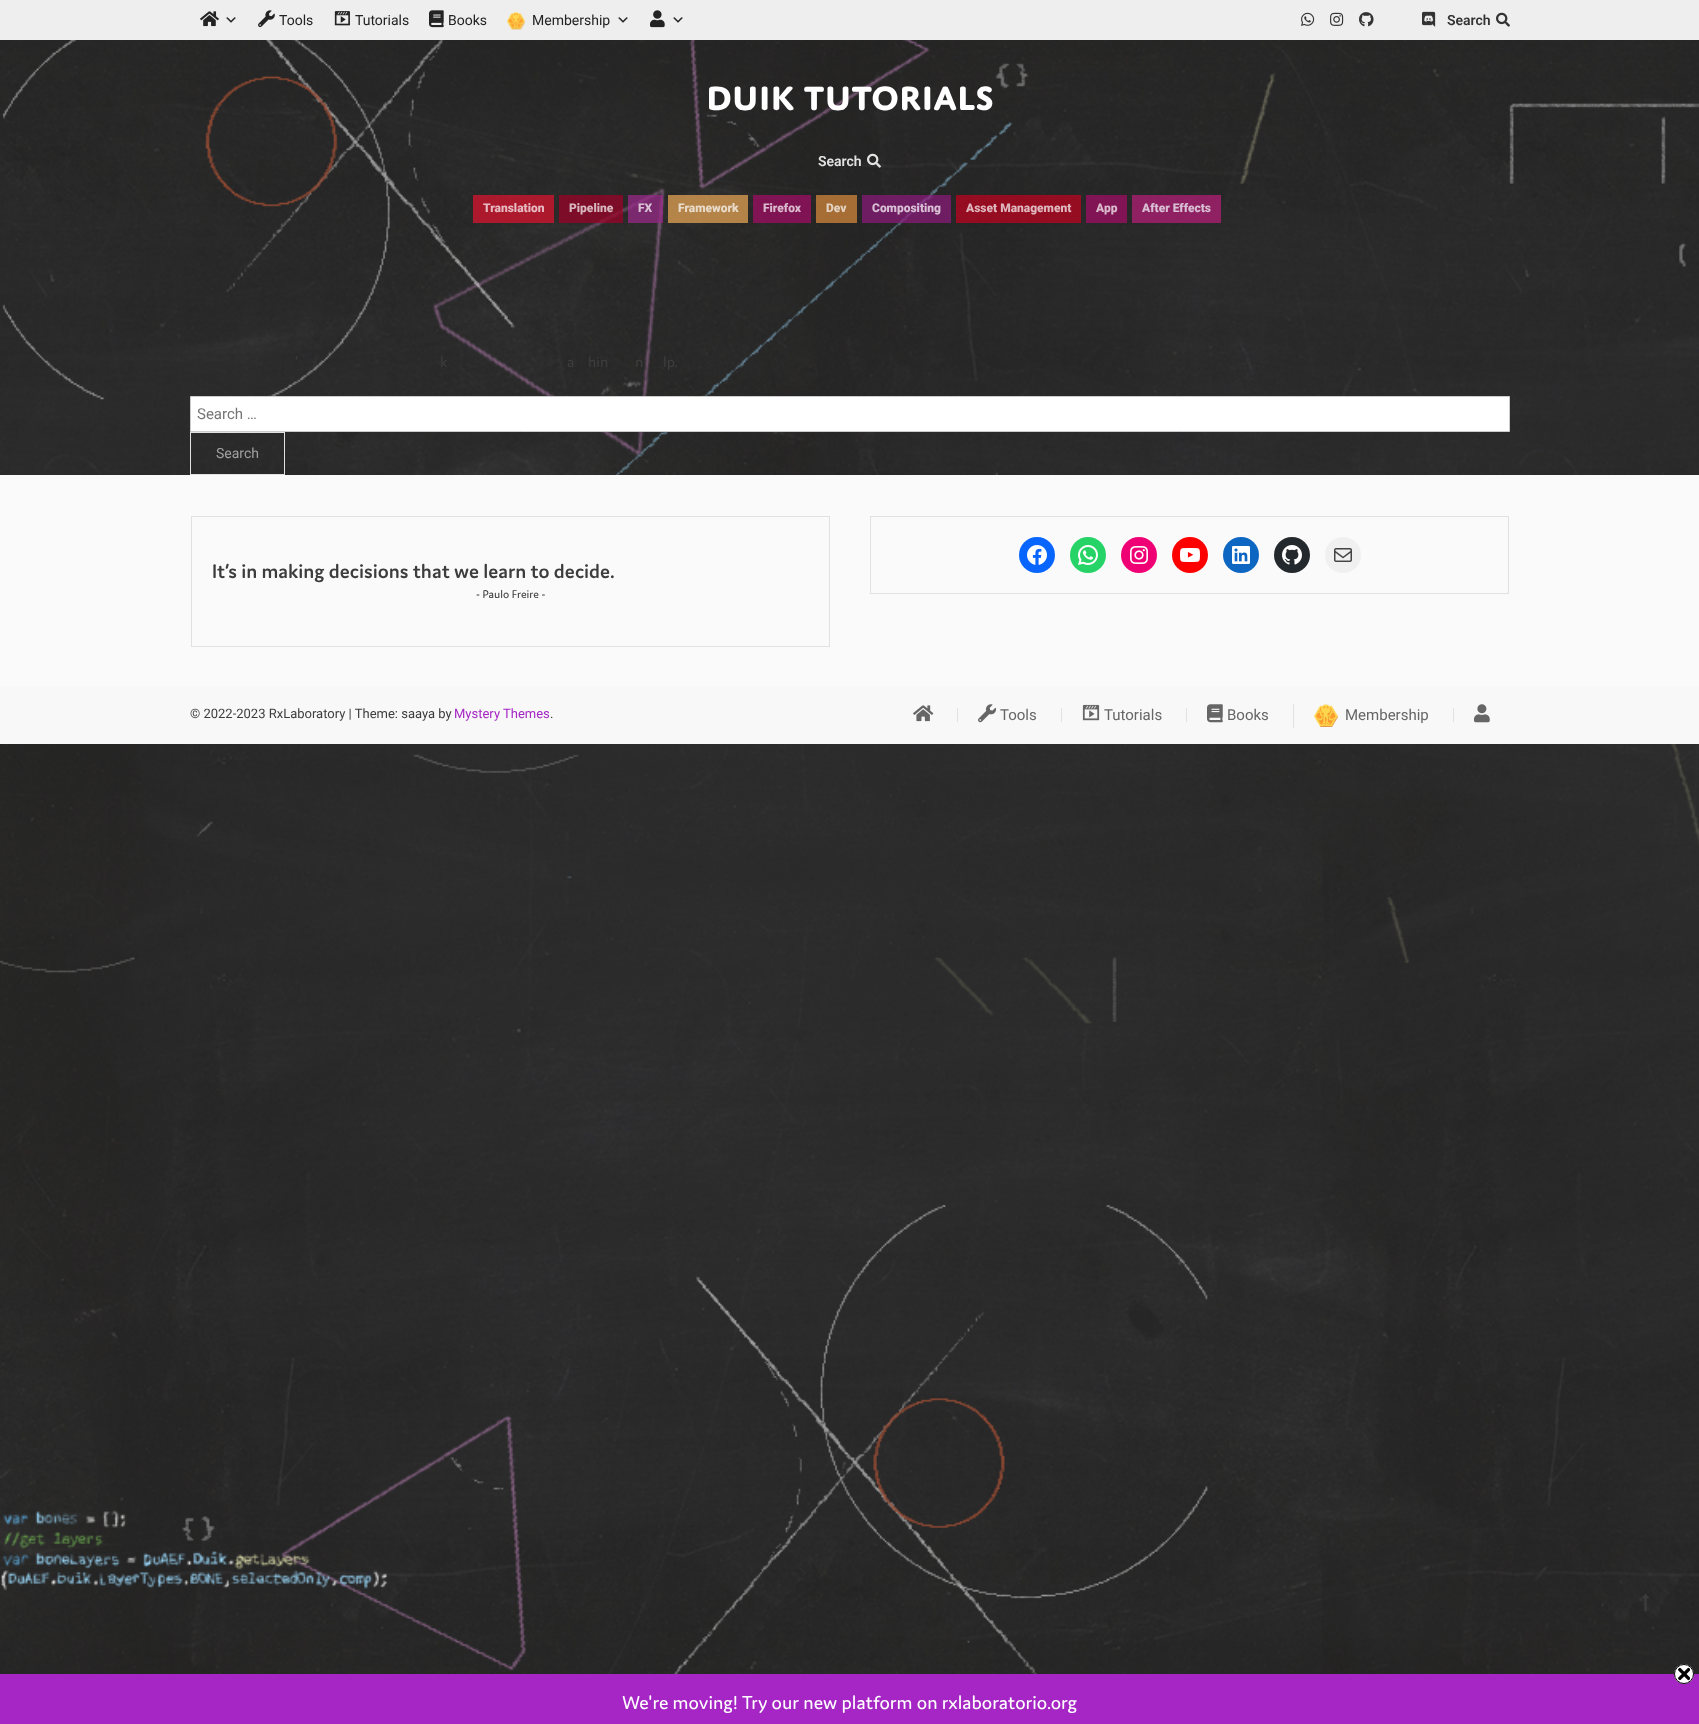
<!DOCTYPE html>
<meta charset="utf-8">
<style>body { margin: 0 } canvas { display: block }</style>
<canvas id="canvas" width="1699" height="1724"></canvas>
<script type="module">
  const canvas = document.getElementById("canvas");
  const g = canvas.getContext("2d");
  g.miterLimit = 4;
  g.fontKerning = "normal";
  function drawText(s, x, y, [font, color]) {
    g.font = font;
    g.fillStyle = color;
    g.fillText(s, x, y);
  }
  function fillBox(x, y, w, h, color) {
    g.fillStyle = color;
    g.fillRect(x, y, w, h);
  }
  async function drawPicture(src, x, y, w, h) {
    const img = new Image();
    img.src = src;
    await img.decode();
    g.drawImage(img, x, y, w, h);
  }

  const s1 = ["14px Roboto", "#232323"];
  const s2 = ["600 14px Roboto", "#333333"];
  const s3 = ["bold 36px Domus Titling", "#FFFFFF"];
  const s4 = ["600 14px Roboto", "#E3E3E3"];
  const s5 = ["900 12px Roboto", "#E6BAC0"];
  const s6 = ["900 12px Roboto", "#D8B6BE"];
  const s7 = ["900 12px Roboto", "#D8BFD4"];
  const s8 = ["900 12px Roboto", "#E8DAC8"];
  const s9 = ["900 12px Roboto", "#D9B9CB"];
  const s10 = ["900 12px Roboto", "#E4D3C2"];
  const s11 = ["900 12px Roboto", "#DFB6BD"];
  const s12 = ["16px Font", "#3D3D3D"];
  const s13 = ["15px Roboto", "#757575"];
  const s14 = ["14px Roboto", "#A1A1A1"];
  const s15 = ["500 21px Font", "#3D3D3D"];
  const s16 = ["12px Font", "#3D3D3D"];
  const s17 = ["13px Roboto", "#3D3D3D"];
  const s18 = ["13px Roboto", "#A526C4"];
  const s19 = ["15px Roboto", "#666666"];
  const s20 = ["20px Font", "#FFFFFF"];

  fillBox(0, 0, 1699, 1724, "#FFFFFF");
  await drawPicture("pic1.png", 0, 744, 1699, 930);
  fillBox(0, 0, 1699, 40, "#EEEEEE");
  await drawPicture("pic2.png", 200, 11, 19, 16);
  await drawPicture("pic3.png", 226, 17, 10, 6);
  await drawPicture("pic4.png", 258, 10, 17, 18);
  drawText("Tools", 279, 25, s1);
  await drawPicture("pic5.png", 334, 11, 16, 15);
  drawText("Tutorials", 355, 25, s1);
  await drawPicture("pic6.png", 429, 10, 15, 18);
  drawText("Books", 448, 25, s1);
  await drawPicture("pic7.png", 507, 12, 18, 18);
  drawText("Membership", 532, 25, s1);
  await drawPicture("pic3.png", 618, 17, 10, 6);
  await drawPicture("pic8.png", 650, 10, 15, 18);
  await drawPicture("pic3.png", 673, 17, 10, 6);
  await drawPicture("pic9.png", 1301, 12, 14, 14);
  await drawPicture("pic10.png", 1330, 12, 14, 14);
  await drawPicture("pic11.png", 1359, 12, 15, 15);
  await drawPicture("pic12.png", 1422, 11, 14, 16);
  drawText("Search", 1447, 25, s2);
  await drawPicture("pic13.png", 1496, 12, 14, 15);
  await drawPicture("pic14.png", 0, 40, 1699, 435);
  drawText("Duik Tutorials", 706, 110, s3);
  drawText("Search", 818, 166, s4);
  await drawPicture("pic15.png", 867, 153, 14, 15);
  fillBox(473, 195, 81, 28, "rgba(228, 18, 47, 0.7)");
  drawText("Translation", 483, 212, s5);
  fillBox(559, 195, 64, 28, "rgba(160, 0, 38, 0.7)");
  drawText("Pipeline", 569, 212, s6);
  fillBox(628, 195, 35, 28, "rgba(158, 42, 141, 0.7)");
  drawText("FX", 638, 212, s7);
  fillBox(668, 195, 80, 28, "rgba(238, 170, 85, 0.7)");
  drawText("Framework", 678, 212, s8);
  fillBox(753, 195, 58, 28, "rgba(166, 12, 102, 0.7)");
  drawText("Firefox", 763, 212, s9);
  fillBox(816, 195, 41, 28, "rgba(221, 139, 59, 0.7)");
  drawText("Dev", 826, 212, s10);
  fillBox(862, 195, 89, 28, "rgba(142, 26, 125, 0.7)");
  drawText("Compositing", 872, 212, s7);
  fillBox(956, 195, 125, 28, "rgba(196, 2, 31, 0.7)");
  drawText("Asset Management", 966, 212, s11);
  fillBox(1086, 195, 41, 28, "rgba(166, 12, 102, 0.7)");
  drawText("App", 1096, 212, s9);
  fillBox(1132, 195, 89, 28, "rgba(187, 29, 121, 0.7)");
  drawText("After Effects", 1142, 212, s7);
  drawText("’", 295, 367, s12);
  drawText("k", 440, 367, s12);
  drawText("a", 567, 367, s12);
  drawText("hin", 588, 367, s12);
  drawText("n", 635, 367, s12);
  drawText("lp.", 663, 367, s12);
  g.fillStyle = "#FFFFFF";
  g.beginPath();
  g.rect(190.5, 396.5, 1319, 35);
  g.fill();
  g.strokeStyle = "#CCCCCC";
  g.stroke();
  drawText("Search …", 197, 419, s13);
  g.strokeStyle = "#E1E1E1";
  g.strokeRect(190.5, 432.5, 94, 42);
  drawText("Search", 216, 458, s14);
  fillBox(0, 475, 1699, 212, "#FAFAFA");
  g.strokeRect(191.5, 516.5, 638, 130);
  drawText("It’s in making decisions that we learn to decide.", 212, 578, s15);
  drawText("- Paulo Freire -", 476, 598, s16);
  g.strokeRect(870.5, 516.5, 638, 77);
  g.fillStyle = "#0866FF";
  g.beginPath();
  g.arc(1037, 555, 18, 0, Math.PI * 2);
  g.fill();
  await drawPicture("pic16.png", 1027, 545, 20, 20);
  g.fillStyle = "#25D366";
  g.beginPath();
  g.arc(1088, 555, 18, 0, Math.PI * 2);
  g.fill();
  await drawPicture("pic17.png", 1078, 545, 20, 20);
  g.fillStyle = "#F00075";
  g.beginPath();
  g.arc(1139, 555, 18, 0, Math.PI * 2);
  g.fill();
  await drawPicture("pic18.png", 1130, 546, 18, 18);
  g.fillStyle = "#FF0000";
  g.beginPath();
  g.arc(1190, 555, 18, 0, Math.PI * 2);
  g.fill();
  await drawPicture("pic19.png", 1180, 548, 20, 14);
  g.fillStyle = "#0D66C2";
  g.beginPath();
  g.arc(1241, 555, 18, 0, Math.PI * 2);
  g.fill();
  await drawPicture("pic20.png", 1232, 546, 18, 18);
  g.fillStyle = "#24292D";
  g.beginPath();
  g.arc(1292, 555, 18, 0, Math.PI * 2);
  g.fill();
  await drawPicture("pic21.png", 1282, 545, 20, 20);
  g.fillStyle = "#F0F0F0";
  g.beginPath();
  g.arc(1343, 555, 18, 0, Math.PI * 2);
  g.fill();
  await drawPicture("pic22.png", 1334, 548, 18, 14);
  fillBox(0, 687, 1699, 57, "#F8F8F8");
  drawText("© 2022-2023 RxLaboratory | Theme: saaya by", 190, 718, s17);
  drawText("Mystery Themes", 454, 718, s18);
  drawText(".", 550, 718, s17);
  await drawPicture("pic23.png", 913, 705, 21, 17);
  fillBox(957, 708, 1, 14, "#E1E1E1");
  await drawPicture("pic24.png", 978, 704, 18, 19);
  drawText("Tools", 1000, 720, s19);
  fillBox(1061, 708, 1, 14, "#E1E1E1");
  await drawPicture("pic25.png", 1082, 704, 18, 17);
  drawText("Tutorials", 1104, 720, s19);
  fillBox(1186, 708, 1, 14, "#E1E1E1");
  await drawPicture("pic26.png", 1207, 704, 16, 19);
  drawText("Books", 1227, 720, s19);
  fillBox(1293, 704, 1, 24, "#E1E1E1");
  await drawPicture("pic27.png", 1314, 704, 25, 23);
  drawText("Membership", 1345, 720, s19);
  fillBox(1453, 708, 1, 14, "#E1E1E1");
  await drawPicture("pic28.png", 1474, 704, 16, 19);
  await drawPicture("pic29.png", 1642, 1594, 7, 17);
  fillBox(0, 1674, 1699, 50, "#A526C4");
  g.fillStyle = "#FFFFFF";
  g.beginPath();
  g.arc(1684, 1674, 10, 0, Math.PI * 2);
  g.fill();
  await drawPicture("pic30.png", 1678, 1667, 12, 14);
  g.beginPath();
  g.arc(1684, 1674, 9.5, 0, Math.PI * 2);
  g.strokeStyle = "#000000";
  g.stroke();
  drawText("We're moving! Try our new platform on rxlaboratorio.org", 622, 1709, s20);
</script>
